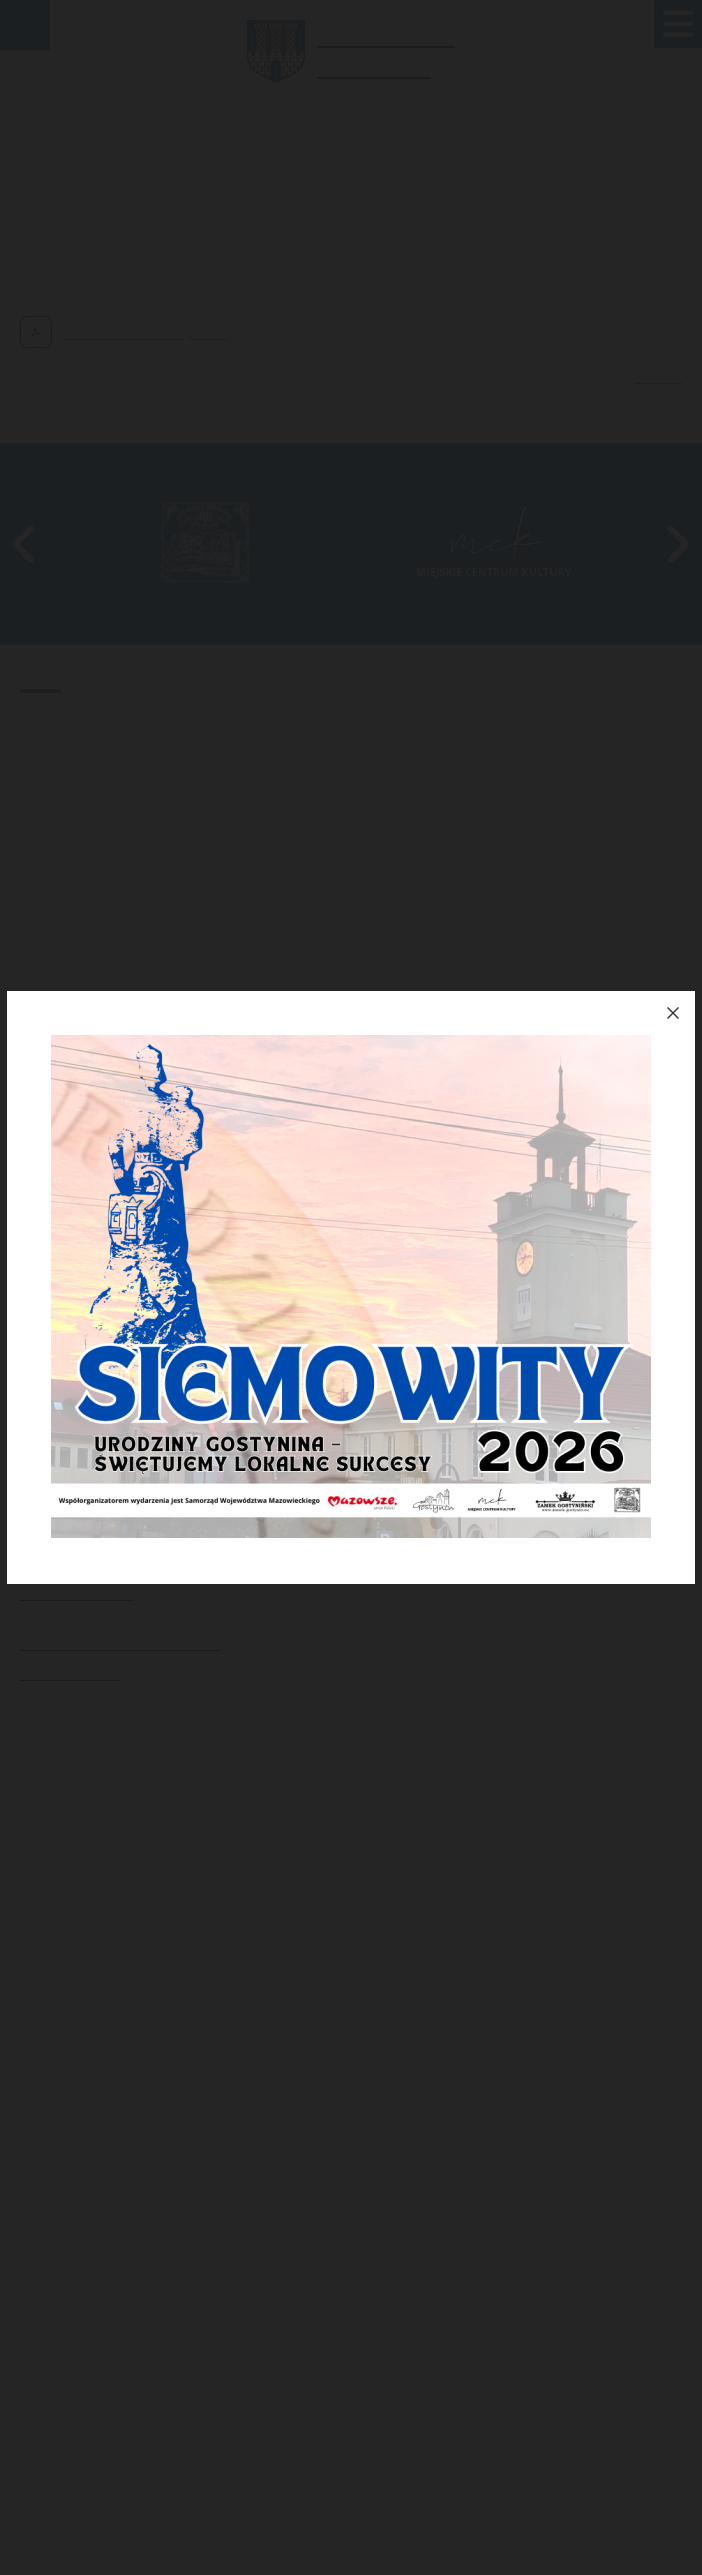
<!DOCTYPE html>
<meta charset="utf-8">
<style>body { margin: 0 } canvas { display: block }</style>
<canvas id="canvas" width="702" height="2575"></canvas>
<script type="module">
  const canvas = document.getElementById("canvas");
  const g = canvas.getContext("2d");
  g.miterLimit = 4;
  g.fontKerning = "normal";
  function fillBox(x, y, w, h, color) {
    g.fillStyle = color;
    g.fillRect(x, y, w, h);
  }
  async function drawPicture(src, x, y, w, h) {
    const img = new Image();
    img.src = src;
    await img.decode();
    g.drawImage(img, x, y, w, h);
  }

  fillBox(0, 0, 702, 2575, "#252525");
  fillBox(0, 0, 50, 50, "#1B1F22");
  await drawPicture("pic1.png", 247, 20, 58, 62);
  fillBox(317, 46, 138, 2, "#1B1B1B");
  fillBox(317, 77, 114, 2, "#1B1B1B");
  fillBox(654, 0, 48, 48, "#1B1F22");
  await drawPicture("pic2.png", 663, 10, 31, 27);
  await drawPicture("pic3.png", 19, 316, 33, 33);
  fillBox(189, 337, 4, 1, "#1B1F22");
  fillBox(62, 339, 122, 1, "#1B1F22");
  fillBox(193, 339, 36, 1, "#1B1F22");
  fillBox(635, 383, 47, 1, "#1B1F22");
  fillBox(0, 443, 702, 202, "#1B1F22");
  await drawPicture("pic4.png", 65, 498, 281, 88);
  await drawPicture("pic5.png", 356, 498, 281, 88);
  await drawPicture("pic6.png", 12, 525, 22, 38);
  await drawPicture("pic7.png", 667, 525, 23, 38);
  fillBox(20, 689, 41, 4, "#1B1F22");
  fillBox(20, 1600, 114, 1, "#1B1B1B");
  fillBox(20, 1650, 202, 1, "#1B1B1B");
  fillBox(20, 1680, 101, 1, "#1B1B1B");
  fillBox(7, 991, 688, 593, "#FFFFFF");
  await drawPicture("pic8.png", 667, 1007, 12, 12);
  await drawPicture("pic9.png", 51, 1035, 600, 503);
</script>
